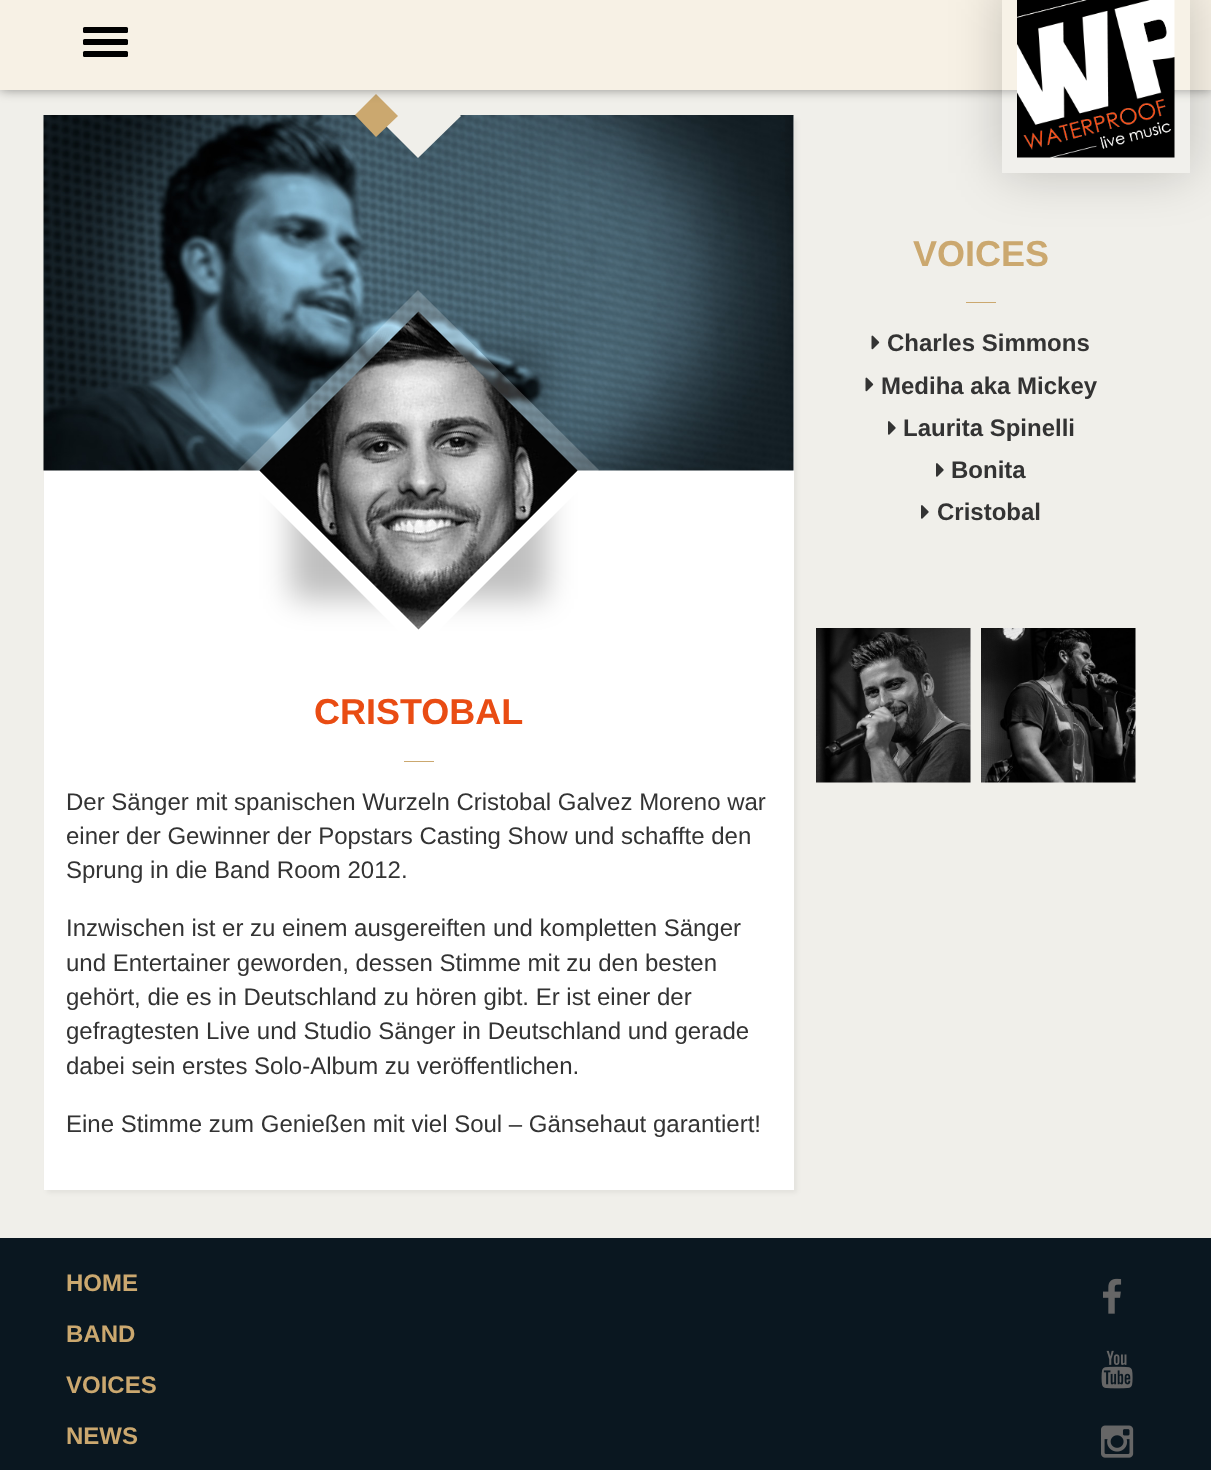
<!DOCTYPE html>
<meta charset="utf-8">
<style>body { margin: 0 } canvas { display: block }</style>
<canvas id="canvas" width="1211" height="1470"></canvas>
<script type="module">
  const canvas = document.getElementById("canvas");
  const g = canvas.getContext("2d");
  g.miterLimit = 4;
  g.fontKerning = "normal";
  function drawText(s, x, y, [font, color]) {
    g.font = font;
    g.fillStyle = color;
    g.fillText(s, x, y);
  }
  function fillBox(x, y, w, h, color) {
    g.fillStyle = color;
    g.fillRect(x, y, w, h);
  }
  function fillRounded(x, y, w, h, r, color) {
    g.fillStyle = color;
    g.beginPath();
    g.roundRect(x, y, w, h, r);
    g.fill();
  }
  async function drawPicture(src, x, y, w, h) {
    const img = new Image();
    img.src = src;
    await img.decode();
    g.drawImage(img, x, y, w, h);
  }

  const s1 = ["bold 36px Liberation Sans", "#CBA86F"];
  const s2 = ["bold 24px Liberation Sans", "#333333"];
  const s3 = ["bold 36px Liberation Sans", "#E94C13"];
  const s4 = ["24px Liberation Sans", "#333333"];
  const s5 = ["bold 24px Liberation Sans", "#CBA86F"];

  fillBox(0, 0, 1211, 1470, "#0A1720");
  fillBox(0, 90, 1211, 1148, "#F0EFEA");
  g.fillStyle = "rgba(0, 0, 0, 0.05)";
  g.filter = "blur(2px)";
  g.beginPath();
  g.rect(47, 119, 750, 1074);
  g.fill();
  g.filter = "none";
  fillBox(44, 116, 750, 1074, "#FFFFFF");
  await drawPicture("pic6.png", 43, 115, 751, 356);
  g.fillStyle = "#F0EFEA";
  g.beginPath();
  g.moveTo(418, 73);
  g.lineTo(461, 116);
  g.lineTo(418, 158);
  g.lineTo(376, 116);
  g.closePath();
  g.fill();
  g.fillStyle = "#CBA86F";
  g.beginPath();
  g.moveTo(376, 94);
  g.lineTo(398, 116);
  g.lineTo(376, 137);
  g.lineTo(355, 115);
  g.closePath();
  g.fill();
  g.fillStyle = "rgba(0, 0, 0, 0.4)";
  g.filter = "blur(6px)";
  g.beginPath();
  g.rect(0, 0, 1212, 90);
  g.fill();
  g.filter = "none";
  fillBox(0, 0, 1211, 90, "#F7F1E5");
  fillRounded(83, 27, 45, 6, 1.5, "#000000");
  fillRounded(83, 39, 45, 6, 1.5, "#000000");
  fillRounded(83, 51, 45, 6, 1.5, "#000000");
  g.save();
  g.beginPath();
  g.moveTo(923, 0);
  g.lineTo(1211, 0);
  g.lineTo(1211, 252);
  g.lineTo(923, 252);
  g.closePath();
  g.moveTo(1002, -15);
  g.lineTo(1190, -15);
  g.lineTo(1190, 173);
  g.lineTo(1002, 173);
  g.closePath();
  g.clip("evenodd");
  g.fillStyle = "rgba(0, 0, 0, 0.2)";
  g.filter = "blur(26px)";
  g.beginPath();
  g.rect(1002, -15, 188, 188);
  g.fill();
  g.filter = "none";
  g.restore();
  await drawPicture("pic1.png", 1017, 0, 158, 158);
  g.strokeStyle = "rgba(255, 255, 255, 0.1)";
  g.lineWidth = 15;
  g.strokeRect(1009.5, -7.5, 173, 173);
  fillBox(966, 302, 30, 1, "#CBA86F");
  drawText("VOICES", 913, 266, s1);
  await drawPicture("pic2.png", 871, 335, 9, 15);
  drawText("Charles Simmons", 887, 351, s2);
  await drawPicture("pic2.png", 865, 377, 9, 15);
  drawText("Mediha aka Mickey", 881, 394, s2);
  await drawPicture("pic3.png", 888, 421, 8, 14);
  drawText("Laurita Spinelli", 903, 436, s2);
  await drawPicture("pic3.png", 936, 463, 8, 14);
  drawText("Bonita", 951, 478, s2);
  await drawPicture("pic3.png", 921, 505, 8, 14);
  drawText("Cristobal", 937, 520, s2);
  await drawPicture("pic4.png", 816, 628, 155, 155);
  await drawPicture("pic5.png", 981, 628, 155, 155);
  g.save();
  g.beginPath();
  g.moveTo(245, 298);
  g.lineTo(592, 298);
  g.lineTo(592, 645);
  g.lineTo(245, 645);
  g.closePath();
  g.moveTo(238, 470);
  g.lineTo(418.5, 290);
  g.lineTo(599, 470);
  g.lineTo(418.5, 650.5);
  g.closePath();
  g.clip("evenodd");
  g.fillStyle = "rgba(0, 0, 0, 0.25)";
  g.filter = "blur(15px)";
  g.beginPath();
  g.rect(291, 344, 255, 255);
  g.fill();
  g.filter = "none";
  g.restore();
  g.fillStyle = "rgba(255, 255, 255, 0.2)";
  g.beginPath();
  g.moveTo(238, 470);
  g.lineTo(418, 290);
  g.lineTo(599, 470);
  g.lineTo(418, 651);
  g.closePath();
  g.fill();
  await drawPicture("pic7.png", 259, 311, 319, 319);
  fillBox(404, 761, 30, 1, "#CBA86F");
  drawText("CRISTOBAL", 314, 724, s3);
  drawText("Der Sänger mit spanischen Wurzeln Cristobal Galvez Moreno war", 66, 810, s4);
  drawText("einer der Gewinner der Popstars Casting Show und schaffte den", 66, 844, s4);
  drawText("Sprung in die Band Room 2012.", 66, 878, s4);
  drawText("Inzwischen ist er zu einem ausgereiften und kompletten Sänger", 66, 936, s4);
  drawText("und Entertainer geworden, dessen Stimme mit zu den besten", 66, 971, s4);
  drawText("gehört, die es in Deutschland zu hören gibt. Er ist einer der", 66, 1005, s4);
  drawText("gefragtesten Live und Studio Sänger in Deutschland und gerade", 66, 1039, s4);
  drawText("dabei sein erstes Solo-Album zu veröffentlichen.", 66, 1074, s4);
  drawText("Eine Stimme zum Genießen mit viel Soul – Gänsehaut garantiert!", 66, 1132, s4);
  drawText("HOME", 66, 1291, s5);
  drawText("BAND", 66, 1342, s5);
  drawText("VOICES", 66, 1393, s5);
  drawText("NEWS", 66, 1444, s5);
  await drawPicture("pic8.png", 1103, 1278, 19, 36);
  await drawPicture("pic9.png", 1101, 1350, 32, 39);
  await drawPicture("pic10.png", 1101, 1425, 33, 33);
</script>
